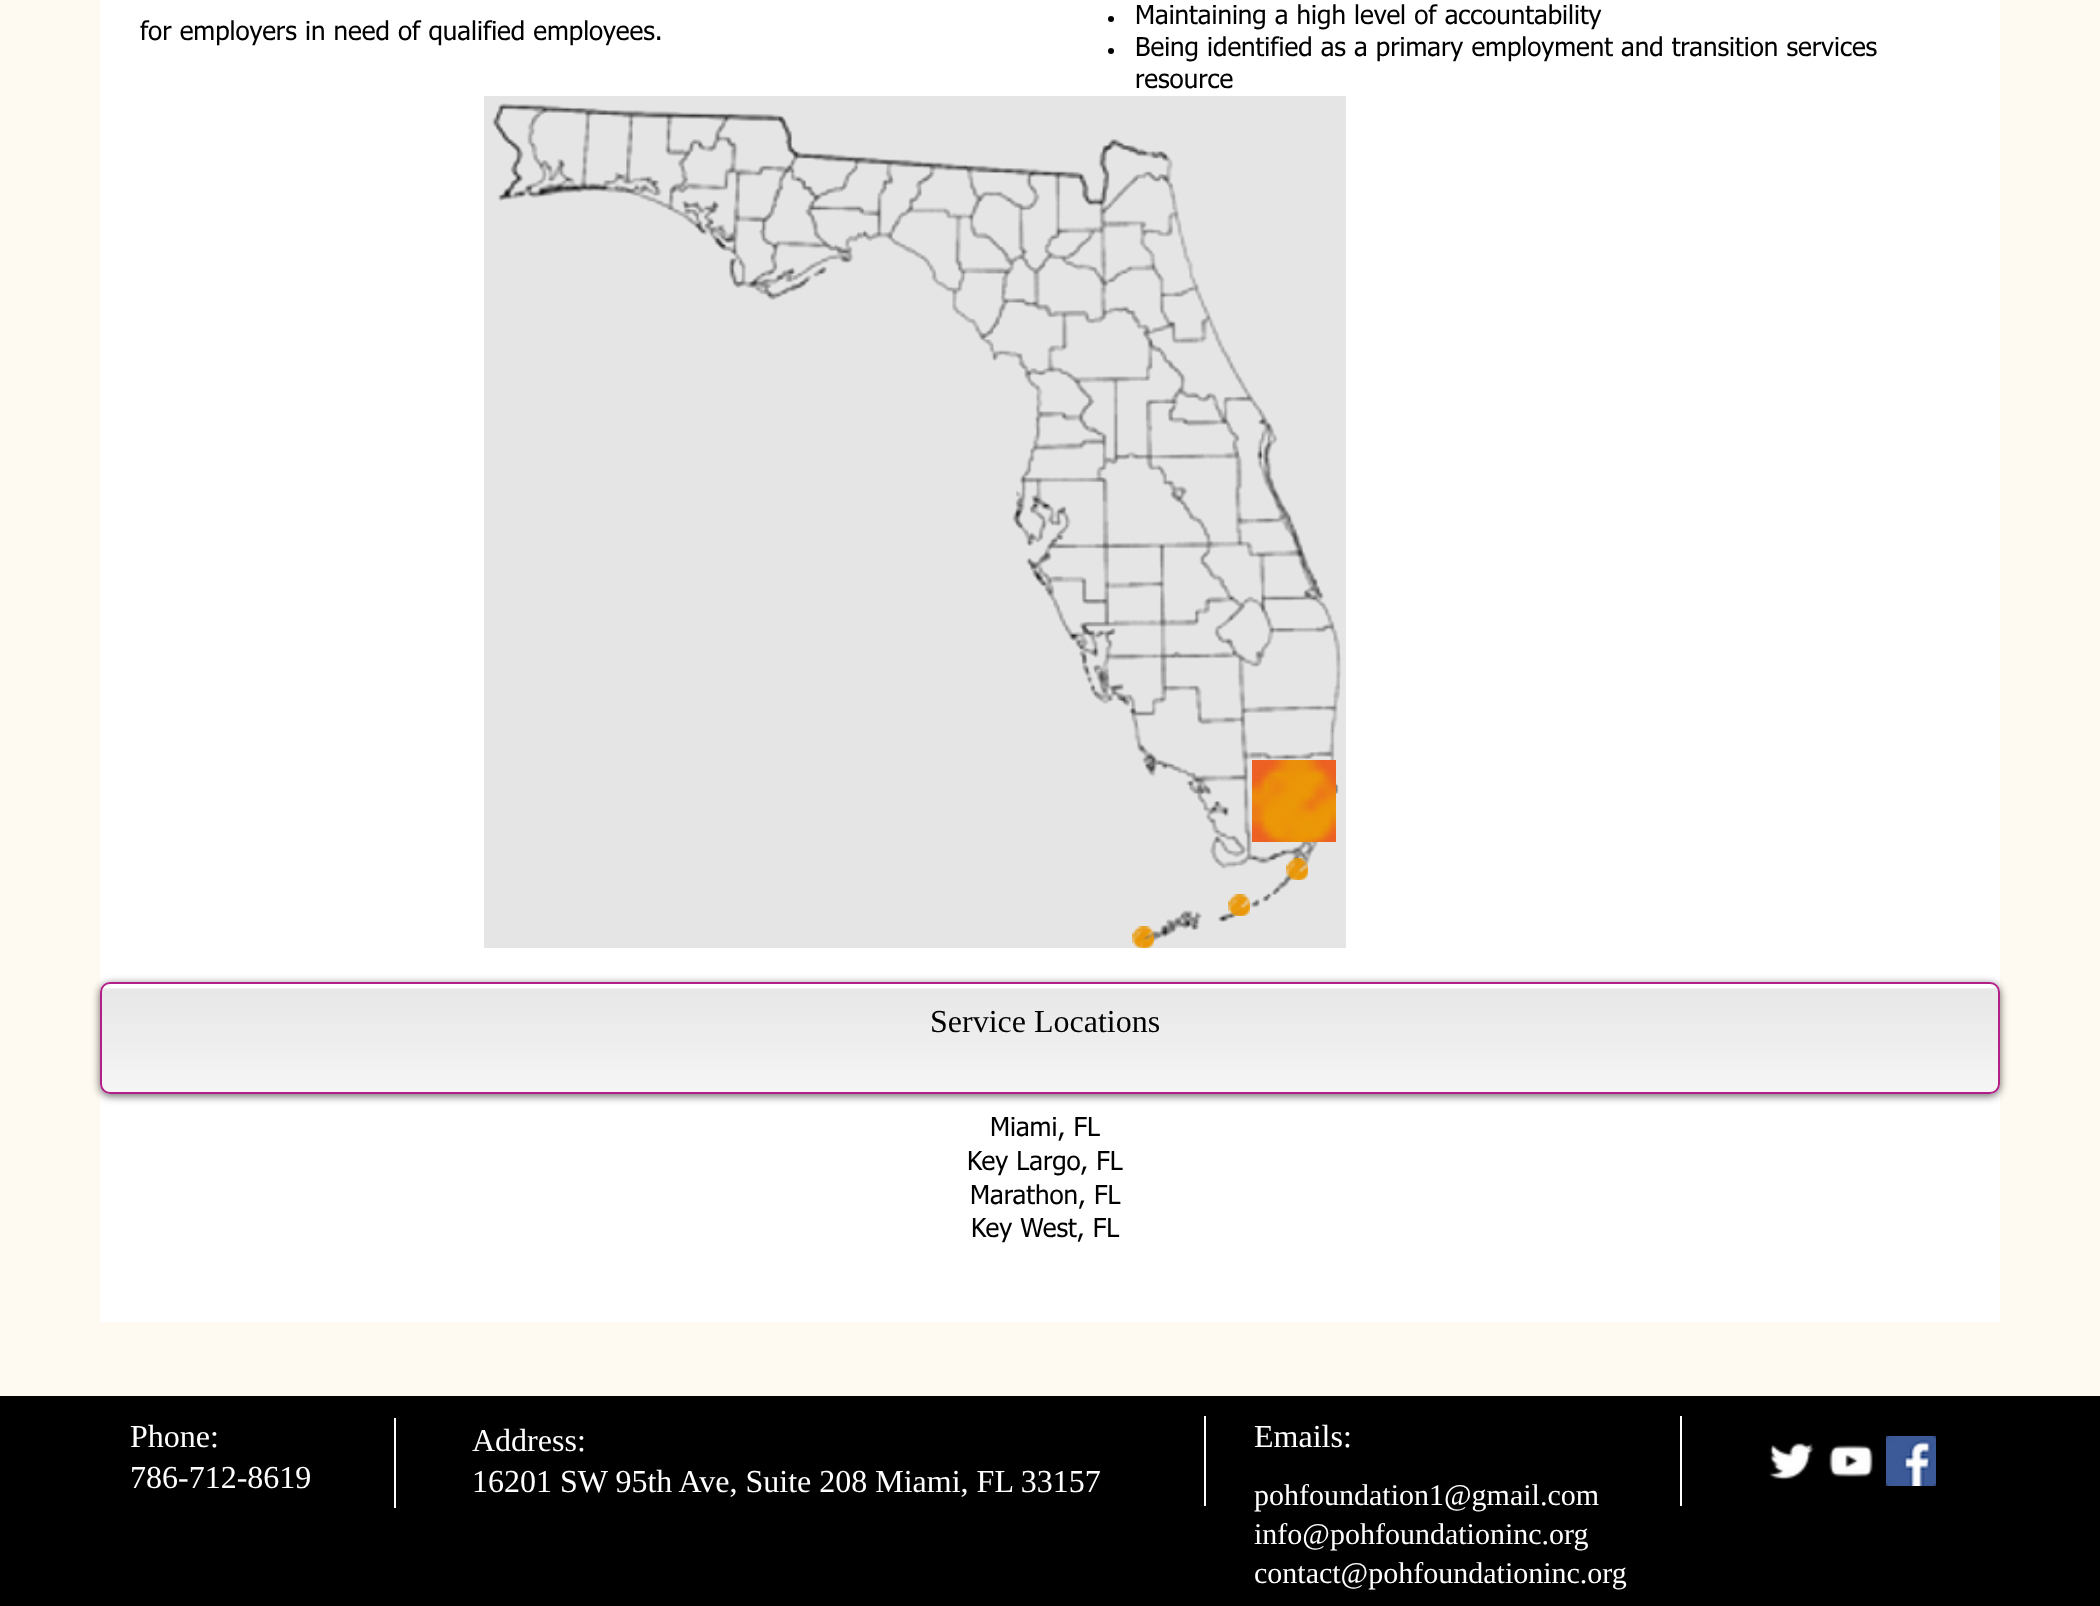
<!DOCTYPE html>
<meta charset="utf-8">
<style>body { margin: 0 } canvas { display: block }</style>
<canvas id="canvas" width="2100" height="1606"></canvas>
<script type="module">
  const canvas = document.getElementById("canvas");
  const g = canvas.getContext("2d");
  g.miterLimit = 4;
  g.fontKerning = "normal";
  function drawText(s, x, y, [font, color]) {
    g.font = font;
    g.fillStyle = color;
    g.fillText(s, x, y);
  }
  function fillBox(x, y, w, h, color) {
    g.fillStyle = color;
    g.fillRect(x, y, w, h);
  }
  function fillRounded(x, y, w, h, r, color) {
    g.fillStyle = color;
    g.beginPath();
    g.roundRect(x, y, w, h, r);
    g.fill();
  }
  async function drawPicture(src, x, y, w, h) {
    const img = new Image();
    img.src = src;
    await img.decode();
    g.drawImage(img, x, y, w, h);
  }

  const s1 = ["26px tahoma", "#000000"];
  const s2 = ["32px Liberation Serif", "#000000"];
  const s3 = ["32px Liberation Serif", "#FFFFFF"];
  const s4 = ["30px Liberation Serif", "#FFFFFF"];

  fillBox(0, 0, 2100, 1606, "#FFFAF1");
  fillBox(100, 0, 1900, 1322, "#FFFFFF");
  drawText("for employers in need of qualified employees.", 140, 40, s1);
  g.beginPath();
  g.arc(1111, 19, 3, 0, Math.PI * 2);
  g.fill();
  drawText("Maintaining a high level of accountability", 1135, 24, s1);
  g.beginPath();
  g.arc(1111, 51, 3, 0, Math.PI * 2);
  g.fill();
  drawText("Being identified as a primary employment and transition services", 1135, 56, s1);
  drawText("resource", 1135, 88, s1);
  g.fillStyle = "rgba(0, 0, 0, 0.6)";
  g.filter = "blur(4px)";
  g.beginPath();
  g.roundRect(100, 984, 1900, 112, 10);
  g.fill();
  g.filter = "none";
  fillRounded(100, 982, 1900, 112, 10, "#FFFFFF");
  await drawPicture("pic1.png", 100, 988, 1900, 106);
  g.beginPath();
  g.roundRect(101, 983, 1898, 110, 9);
  g.strokeStyle = "#B22087";
  g.lineWidth = 2;
  g.stroke();
  drawText("Service Locations", 930, 1032, s2);
  await drawPicture("pic2.png", 484, 96, 862, 852);
  fillBox(1252, 760, 84, 82, "#ED6124");
  await drawPicture("pic3.png", 1252, 760, 84, 82);
  await drawPicture("pic4.png", 1286, 858, 22, 22);
  await drawPicture("pic5.png", 1228, 894, 22, 22);
  await drawPicture("pic6.png", 1132, 926, 22, 22);
  drawText("Miami, FL", 990, 1136, s1);
  drawText("Key Largo, FL", 967, 1170, s1);
  drawText("Marathon, FL", 970, 1204, s1);
  drawText("Key West, FL", 971, 1237, s1);
  fillBox(0, 1396, 2100, 210, "#000000");
  drawText("Phone:", 130, 1447, s3);
  drawText("786-712-8619", 130, 1488, s3);
  fillBox(394, 1418, 2, 90, "#FFFFFF");
  drawText("Address:", 472, 1451, s3);
  drawText("16201 SW 95th Ave, Suite 208 Miami, FL 33157", 472, 1492, s3);
  fillBox(1204, 1416, 2, 90, "#FFFFFF");
  drawText("Emails:", 1254, 1447, s3);
  drawText("pohfoundation1@gmail.com", 1254, 1505, s4);
  drawText("info@pohfoundationinc.org", 1254, 1544, s4);
  drawText("contact@pohfoundationinc.org", 1254, 1583, s4);
  fillBox(1680, 1416, 2, 90, "#FFFFFF");
  await drawPicture("pic7.png", 1769, 1443, 46, 37);
  await drawPicture("pic8.png", 1829, 1445, 44, 32);
  await drawPicture("pic9.png", 1886, 1436, 50, 50);
</script>
